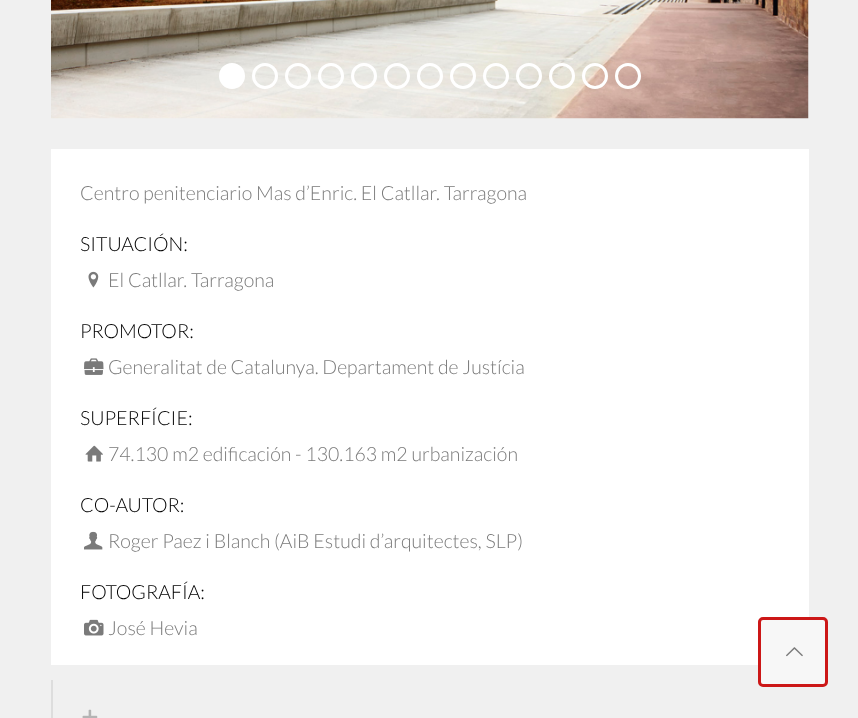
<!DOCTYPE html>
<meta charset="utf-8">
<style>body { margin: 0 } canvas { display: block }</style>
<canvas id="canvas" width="858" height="718"></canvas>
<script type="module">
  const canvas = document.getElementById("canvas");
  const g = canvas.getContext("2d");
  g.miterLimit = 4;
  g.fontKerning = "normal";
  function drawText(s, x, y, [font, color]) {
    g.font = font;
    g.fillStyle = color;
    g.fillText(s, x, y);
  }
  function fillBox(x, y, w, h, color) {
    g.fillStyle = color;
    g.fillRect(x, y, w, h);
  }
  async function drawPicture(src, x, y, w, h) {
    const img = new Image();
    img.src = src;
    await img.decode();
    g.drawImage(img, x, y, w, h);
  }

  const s1 = ["300 19.5px Lato", "#7A7A7A"];
  const s2 = ["300 19.5px Lato", "#000000"];

  fillBox(0, 0, 858, 718, "#F0F0F0");
  await drawPicture("pic1.png", 51, 0, 758, 119);
  g.beginPath();
  g.arc(232, 76, 11.5, 0, Math.PI * 2);
  g.strokeStyle = "#FFFFFF";
  g.lineWidth = 3;
  g.stroke();
  g.fillStyle = "#FFFFFF";
  g.beginPath();
  g.arc(232, 76, 11, 0, Math.PI * 2);
  g.fill();
  g.beginPath();
  g.arc(265, 76, 11.5, 0, Math.PI * 2);
  g.stroke();
  g.beginPath();
  g.arc(298, 76, 11.5, 0, Math.PI * 2);
  g.stroke();
  g.beginPath();
  g.arc(331, 76, 11.5, 0, Math.PI * 2);
  g.stroke();
  g.beginPath();
  g.arc(364, 76, 11.5, 0, Math.PI * 2);
  g.stroke();
  g.beginPath();
  g.arc(397, 76, 11.5, 0, Math.PI * 2);
  g.stroke();
  g.beginPath();
  g.arc(430, 76, 11.5, 0, Math.PI * 2);
  g.stroke();
  g.beginPath();
  g.arc(463, 76, 11.5, 0, Math.PI * 2);
  g.stroke();
  g.beginPath();
  g.arc(496, 76, 11.5, 0, Math.PI * 2);
  g.stroke();
  g.beginPath();
  g.arc(529, 76, 11.5, 0, Math.PI * 2);
  g.stroke();
  g.beginPath();
  g.arc(562, 76, 11.5, 0, Math.PI * 2);
  g.stroke();
  g.beginPath();
  g.arc(595, 76, 11.5, 0, Math.PI * 2);
  g.stroke();
  g.beginPath();
  g.arc(628, 76, 11.5, 0, Math.PI * 2);
  g.stroke();
  fillBox(51, 149, 758, 516, "#FFFFFF");
  drawText("Centro penitenciario Mas d’Enric. El Catllar. Tarragona", 80, 200, s1);
  drawText("SITUACIÓN:", 80, 251, s2);
  await drawPicture("pic2.png", 88, 271, 11, 17);
  drawText("El Catllar. Tarragona", 108, 287, s1);
  drawText("PROMOTOR:", 80, 338, s2);
  await drawPicture("pic3.png", 84, 358, 20, 17);
  drawText("Generalitat de Catalunya. Departament de Justícia", 108, 374, s1);
  drawText("SUPERFÍCIE:", 80, 425, s2);
  await drawPicture("pic4.png", 85, 445, 18, 17);
  drawText("74.130 m2 edificación - 130.163 m2 urbanización", 108, 461, s1);
  drawText("CO-AUTOR:", 80, 512, s2);
  await drawPicture("pic5.png", 84, 531, 19, 19);
  drawText("Roger Paez i Blanch (AiB Estudi d’arquitectes, SLP)", 108, 548, s1);
  drawText("FOTOGRAFÍA:", 80, 599, s2);
  await drawPicture("pic6.png", 84, 619, 20, 17);
  drawText("José Hevia", 108, 635, s1);
  fillBox(51, 680, 2, 38, "#DDDDDD");
  await drawPicture("pic7.png", 82, 709, 16, 9);
  g.fillStyle = "#F7F7F7";
  g.beginPath();
  g.roundRect(759.5, 618.5, 67, 67, 3.5);
  g.fill();
  g.strokeStyle = "#CC1717";
  g.stroke();
  await drawPicture("pic8.png", 786, 647, 17, 10);
</script>
